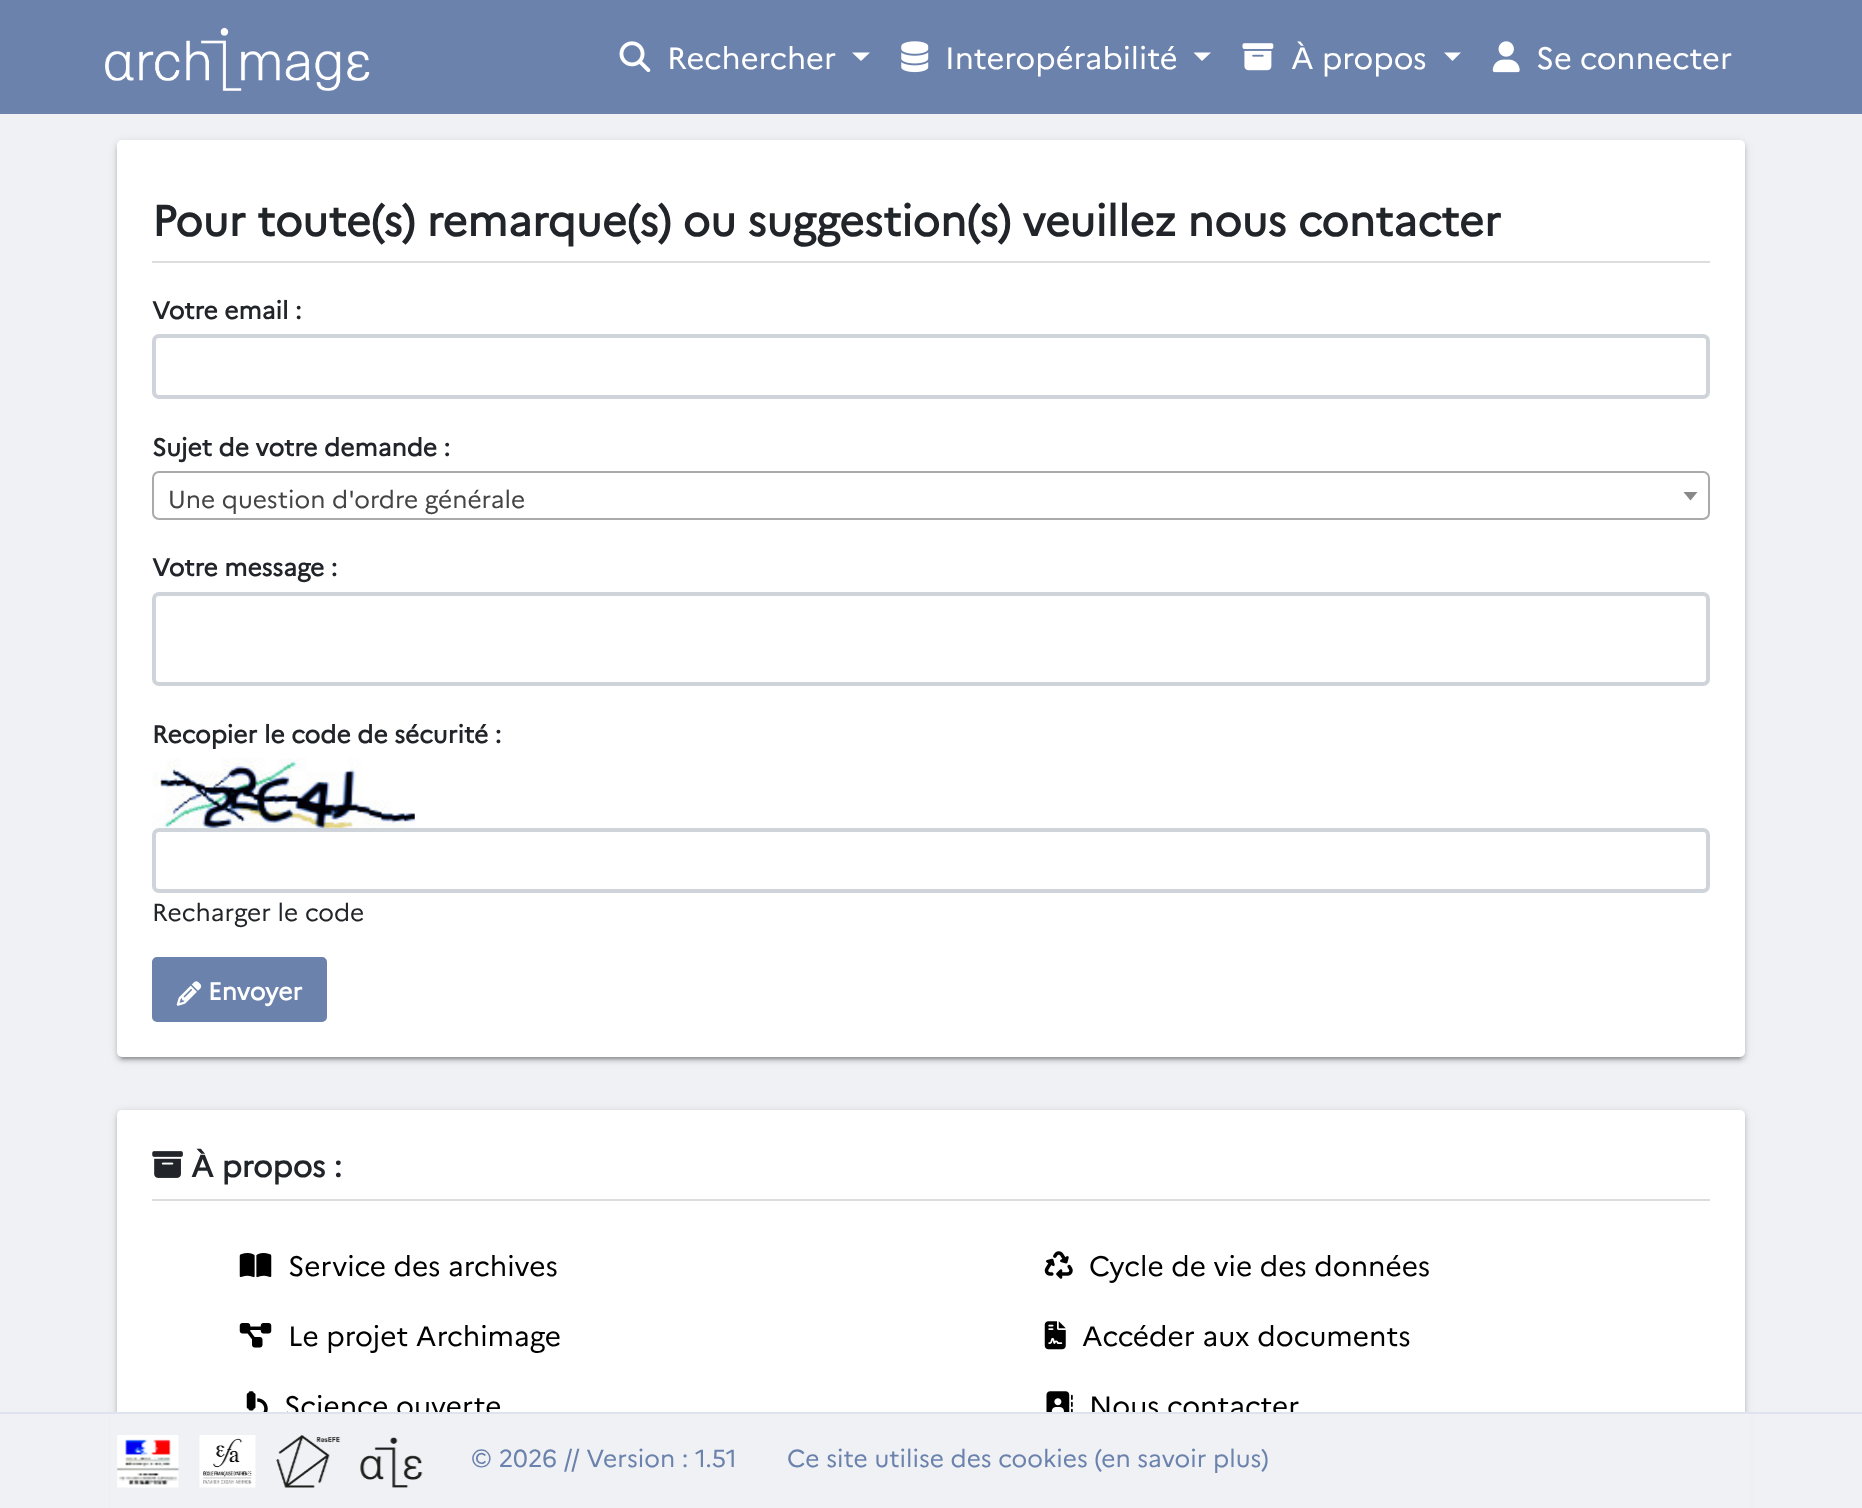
<!DOCTYPE html>
<meta charset="utf-8">
<style>body { margin: 0 } canvas { display: block }</style>
<canvas id="canvas" width="1862" height="1508"></canvas>
<script type="module">
  const canvas = document.getElementById("canvas");
  const g = canvas.getContext("2d");
  g.miterLimit = 4;
  g.fontKerning = "normal";
  function drawText(s, x, y, [font, color]) {
    g.font = font;
    g.fillStyle = color;
    g.fillText(s, x, y);
  }
  function fillBox(x, y, w, h, color) {
    g.fillStyle = color;
    g.fillRect(x, y, w, h);
  }
  function fillRounded(x, y, w, h, r, color) {
    g.fillStyle = color;
    g.beginPath();
    g.roundRect(x, y, w, h, r);
    g.fill();
  }
  async function drawPicture(src, x, y, w, h) {
    const img = new Image();
    img.src = src;
    await img.decode();
    g.drawImage(img, x, y, w, h);
  }

  const s1 = ["30.75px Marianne", "#FFFFFF"];
  const s2 = ["bold 42.9px Marianne", "#212529"];
  const s3 = ["bold 24.5px Marianne", "#212529"];
  const s4 = ["24.5px Marianne", "#444444"];
  const s5 = ["24.5px Marianne", "#212529"];
  const s6 = ["bold 24.5px Marianne", "#FFFFFF"];
  const s7 = ["bold 30.5px Marianne", "#212529"];
  const s8 = ["28px Marianne", "#000000"];
  const s9 = ["24.5px Marianne", "#6B82AC"];

  fillBox(0, 0, 1862, 1508, "#EFF1F5");
  fillBox(0, 0, 1862, 114, "#6B82AC");
  await drawPicture("pic1.png", 105, 27, 265, 64);
  await drawPicture("pic2.png", 619, 41, 32, 32);
  drawText("Rechercher", 667, 69, s1);
  g.beginPath();
  g.moveTo(852, 52.5);
  g.lineTo(870, 52.5);
  g.lineTo(861, 61);
  g.closePath();
  g.fill();
  await drawPicture("pic3.png", 901, 41, 28, 32);
  drawText("Interopérabilité", 945, 69, s1);
  g.beginPath();
  g.moveTo(1193.5, 52.5);
  g.lineTo(1211, 52.5);
  g.lineTo(1202, 61);
  g.closePath();
  g.fill();
  await drawPicture("pic4.png", 1242, 43, 32, 28);
  drawText("À propos", 1291, 69, s1);
  g.beginPath();
  g.moveTo(1444, 52.5);
  g.lineTo(1461, 52.5);
  g.lineTo(1452.5, 61);
  g.closePath();
  g.fill();
  await drawPicture("pic5.png", 1492, 41, 28, 32);
  drawText("Se connecter", 1536, 69, s1);
  g.fillStyle = "rgba(0, 0, 0, 0.2)";
  g.filter = "blur(1px)";
  g.beginPath();
  g.roundRect(121, 149, 1620, 910, 2);
  g.fill();
  g.filter = "none";
  g.fillStyle = "rgba(0, 0, 0, 0.12)";
  g.filter = "blur(4.5px)";
  g.beginPath();
  g.roundRect(117, 142, 1628, 917, 5);
  g.fill();
  g.filter = "none";
  g.fillStyle = "rgba(0, 0, 0, 0.14)";
  g.filter = "blur(2px)";
  g.beginPath();
  g.roundRect(117, 144, 1628, 917, 5);
  g.fill();
  g.filter = "none";
  fillRounded(117, 140, 1628, 917, 5, "#FFFFFF");
  fillBox(152, 261, 1558, 2, "#DDDDDD");
  drawText("Pour toute(s) remarque(s) ou suggestion(s) veuillez nous contacter", 152, 236, s2);
  drawText("Votre email :", 152, 319, s3);
  g.beginPath();
  g.roundRect(154, 336, 1554, 61, 5);
  g.strokeStyle = "#CED4DA";
  g.lineWidth = 4;
  g.stroke();
  drawText("Sujet de votre demande :", 152, 456, s3);
  g.beginPath();
  g.roundRect(153, 472, 1556, 47, 6);
  g.strokeStyle = "#AAAAAA";
  g.lineWidth = 2;
  g.stroke();
  drawText("Une question d'ordre générale", 168, 508, s4);
  g.fillStyle = "#888888";
  g.beginPath();
  g.moveTo(1683.5, 492);
  g.lineTo(1697.5, 492);
  g.lineTo(1690.5, 500.5);
  g.closePath();
  g.fill();
  drawText("Votre message :", 152, 576, s3);
  g.beginPath();
  g.roundRect(154, 594, 1554, 90, 5);
  g.strokeStyle = "#CED4DA";
  g.lineWidth = 4;
  g.stroke();
  drawText("Recopier le code de sécurité :", 152, 743, s3);
  await drawPicture("pic6.png", 152, 758, 263, 70);
  g.beginPath();
  g.roundRect(154, 830, 1554, 61, 5);
  g.stroke();
  drawText("Recharger le code", 152, 921, s5);
  g.fillStyle = "#6B82AC";
  g.beginPath();
  g.roundRect(154, 959, 171, 61, 3);
  g.fill();
  g.strokeStyle = "#6B82AC";
  g.stroke();
  await drawPicture("pic7.png", 176, 981, 26, 25);
  drawText("Envoyer", 208, 1000, s6);
  g.fillStyle = "rgba(0, 0, 0, 0.12)";
  g.filter = "blur(4.5px)";
  g.beginPath();
  g.roundRect(117, 1111, 1628, 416, 5);
  g.fill();
  g.filter = "none";
  g.fillStyle = "rgba(0, 0, 0, 0.14)";
  g.filter = "blur(2px)";
  g.beginPath();
  g.roundRect(117, 1113, 1628, 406, 5);
  g.fill();
  g.filter = "none";
  fillRounded(117, 1110, 1628, 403, 5, "#FFFFFF");
  fillBox(152, 1199, 1558, 2, "#DDDDDD");
  await drawPicture("pic8.png", 152, 1151, 31, 27);
  drawText("À propos :", 191, 1177, s7);
  await drawPicture("pic9.png", 239, 1253, 33, 25);
  drawText("Service des archives", 288, 1276, s8);
  await drawPicture("pic10.png", 239, 1323, 33, 25);
  drawText("Le projet Archimage", 288, 1346, s8);
  await drawPicture("pic11.png", 246, 1391, 22, 21);
  drawText("Science ouverte", 284, 1416, s8);
  await drawPicture("pic12.png", 1044, 1251, 29, 28);
  drawText("Cycle de vie des données", 1089, 1276, s8);
  await drawPicture("pic13.png", 1044, 1321, 22, 29);
  drawText("Accéder aux documents", 1082, 1346, s8);
  await drawPicture("pic14.png", 1046, 1391, 27, 21);
  drawText("Nous contacter", 1089, 1416, s8);
  fillBox(111, 1414, 1640, 94, "#EFF1F5");
  fillBox(0, 1412, 1862, 2, "#DEE3ED");
  await drawPicture("pic15.png", 117, 1435, 63, 53);
  await drawPicture("pic16.png", 199, 1435, 57, 53);
  await drawPicture("pic17.png", 276, 1435, 65, 53);
  await drawPicture("pic18.png", 360, 1437, 63, 51);
  drawText("© 2026 // Version : 1.51", 471, 1467, s9);
  drawText("Ce site utilise des cookies (en savoir plus)", 787, 1467, s9);
</script>
